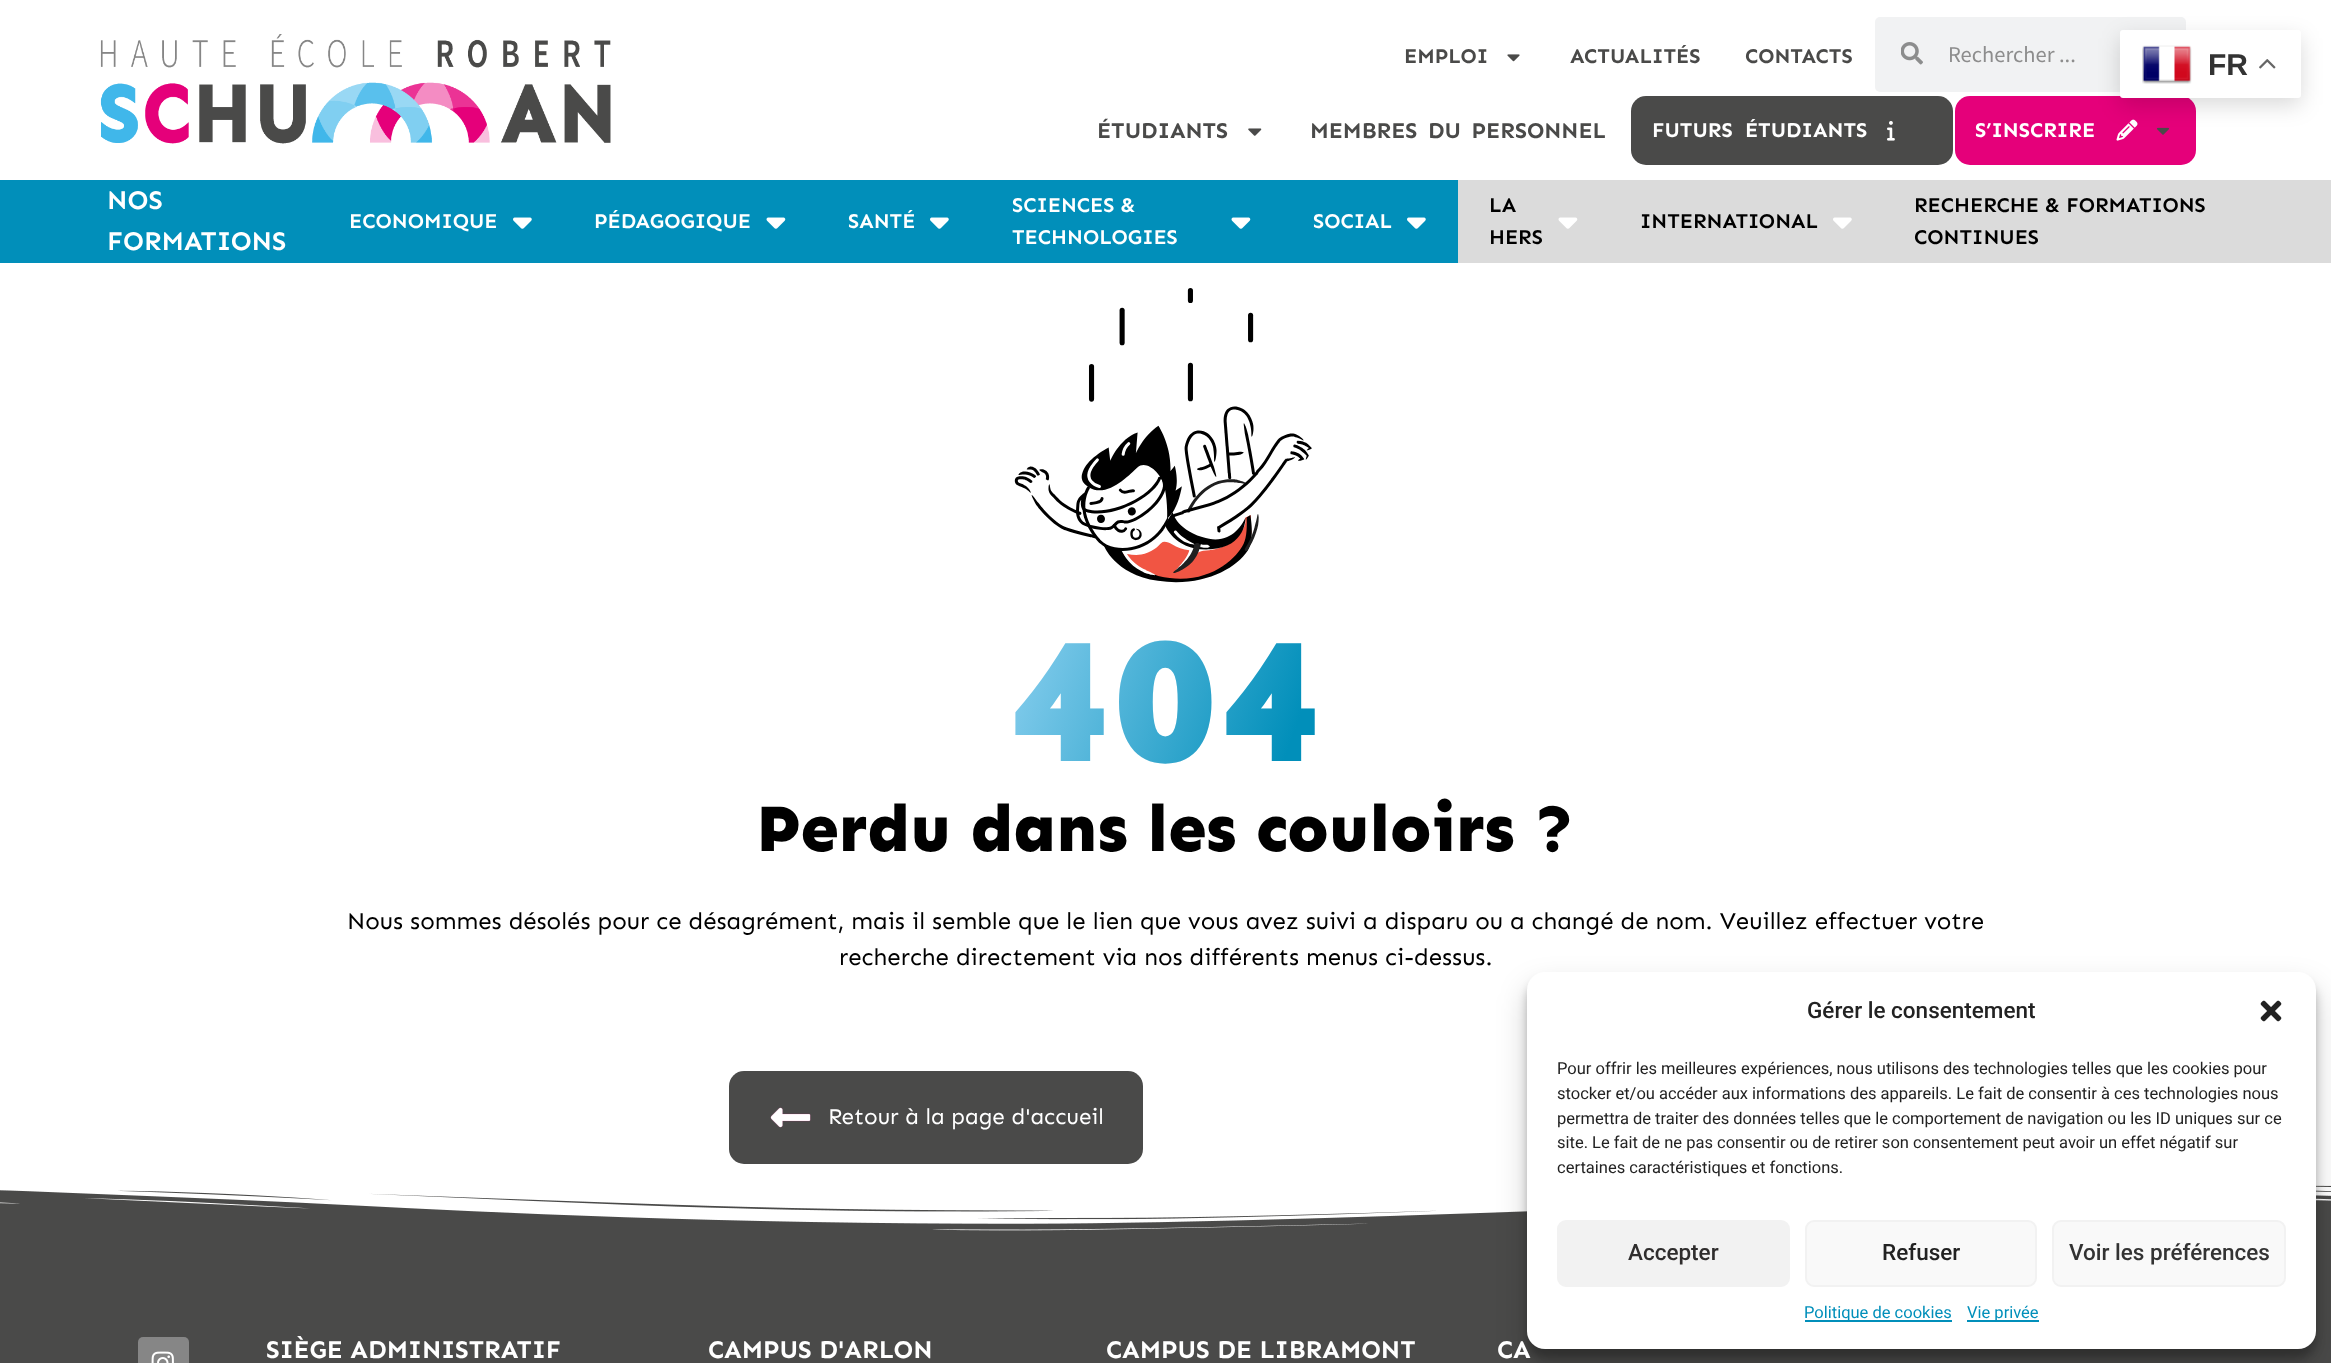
<!DOCTYPE html>
<meta charset="utf-8">
<style>body { margin: 0 } canvas { display: block }</style>
<canvas id="canvas" width="2331" height="1363"></canvas>
<script type="module">
  const canvas = document.getElementById("canvas");
  const g = canvas.getContext("2d");
  g.miterLimit = 4;
  g.fontKerning = "normal";
  function drawText(s, x, y, [font, color]) {
    g.font = font;
    g.fillStyle = color;
    g.fillText(s, x, y);
  }
  function fillBox(x, y, w, h, color) {
    g.fillStyle = color;
    g.fillRect(x, y, w, h);
  }
  function fillRounded(x, y, w, h, r, color) {
    g.fillStyle = color;
    g.beginPath();
    g.roundRect(x, y, w, h, r);
    g.fill();
  }
  async function drawPicture(src, x, y, w, h) {
    const img = new Image();
    img.src = src;
    await img.decode();
    g.drawImage(img, x, y, w, h);
  }
  let gradient;

  const s1 = ["bold 21px Sen", "#4A4A49"];
  const s2 = ["22.5px Source Sans Pro", "#8D8D8D"];
  const s3 = ["bold 22.5px Sen", "#4A4A49"];
  const s4 = ["bold 21px Sen", "#FFFFFF"];
  const s5 = ["600 27px Sen", "#FFFFFF"];
  const s6 = ["600 21px Sen", "#FFFFFF"];
  const s7 = ["600 21px Sen", "#000000"];
  const s8 = ["bold 30px Liberation Sans", "#333333"];
  const s9 = ["800 67.5px Sen", "#000000"];
  const s10 = ["24px Sen", "#000000"];
  const s11 = ["22.5px Sen", "#FFFFFF"];
  const s12 = ["500 22.5px Roboto", "#222222"];
  const s13 = ["16.5px Roboto", "#222222"];
  const s14 = ["500 22.5px Roboto", "#2F2D2D"];
  const s15 = ["500 22.5px Roboto", "#333333"];
  const s16 = ["16.5px Roboto", "#018FBA"];
  const s17 = ["bold 25.5px Sen", "#FFFFFF"];

  fillBox(0, 0, 2331, 1363, "#FFFFFF");
  await drawPicture("pic1.png", 100, 34, 511, 110);
  drawText("EMPLOI", 1404, 63, s1);
  await drawPicture("pic2.png", 1507, 54, 13, 8);
  drawText("ACTUALITÉS", 1570, 63, s1);
  drawText("CONTACTS", 1745, 63, s1);
  fillRounded(1875, 17, 311, 75, 5, "#F1F2F3");
  await drawPicture("pic3.png", 1901, 42, 22, 23);
  drawText("Rechercher ...", 1948, 62, s2);
  drawText("ÉTUDIANTS", 1097, 138, s3);
  await drawPicture("pic4.png", 1248, 128, 14, 8);
  g.wordSpacing = "4px";
  drawText("MEMBRES DU PERSONNEL", 1310, 138, s3);
  fillRounded(1631, 96, 322, 69, 15, "#4A4A49");
  g.wordSpacing = "6px";
  drawText("FUTURS ÉTUDIANTS", 1652, 137, s4);
  await drawPicture("pic5.png", 1887, 121, 8, 20);
  fillRounded(1955, 96, 241, 69, 15, "#E5007A");
  g.wordSpacing = "0px";
  drawText("S’INSCRIRE", 1975, 137, s4);
  await drawPicture("pic6.png", 2116, 119, 22, 22);
  await drawPicture("pic7.png", 2156, 127, 14, 8);
  fillBox(1458, 180, 873, 83, "#DBDBDB");
  fillBox(0, 180, 1458, 83, "#018FBA");
  drawText("NOS", 107, 209, s5);
  drawText("FORMATIONS", 107, 250, s5);
  drawText("ECONOMIQUE", 349, 228, s6);
  await drawPicture("pic8.png", 513, 217, 19, 12);
  drawText("PÉDAGOGIQUE", 594, 228, s6);
  await drawPicture("pic9.png", 766, 217, 20, 12);
  drawText("SANTÉ", 848, 228, s6);
  await drawPicture("pic8.png", 930, 217, 19, 12);
  drawText("SCIENCES &", 1012, 212, s6);
  await drawPicture("pic9.png", 1231, 217, 20, 12);
  drawText("TECHNOLOGIES", 1012, 244, s6);
  drawText("SOCIAL", 1313, 228, s6);
  await drawPicture("pic8.png", 1407, 217, 19, 12);
  drawText("LA", 1489, 212, s7);
  await drawPicture("pic10.png", 1558, 217, 20, 12);
  drawText("HERS", 1489, 244, s7);
  drawText("INTERNATIONAL", 1640, 228, s7);
  await drawPicture("pic11.png", 1833, 217, 19, 12);
  drawText("RECHERCHE & FORMATIONS", 1914, 212, s7);
  drawText("CONTINUES", 1914, 244, s7);
  g.fillStyle = "rgba(0, 0, 0, 0.15)";
  g.filter = "blur(11px)";
  g.beginPath();
  g.roundRect(2120, 38, 181, 67, 3);
  g.fill();
  g.filter = "none";
  fillRounded(2120, 30, 181, 68, 3, "#FFFFFF");
  await drawPicture("pic12.png", 2142, 45, 50, 39);
  drawText("FR", 2208, 75, s8);
  await drawPicture("pic13.png", 2259, 59, 17, 10);
  await drawPicture("pic14.png", 1014, 288, 298, 295);
  g.font = "800 180px Sen";
  gradient = g.createLinearGradient(778, 559, 1553, 842);
  gradient.addColorStop(0.23, "#A1DAF8");
  gradient.addColorStop(0.66, "#018FBA");
  g.fillStyle = gradient;
  g.fillText("404", 1007, 761);
  drawText("Perdu dans les couloirs ?", 757, 851, s9);
  drawText("Nous sommes désolés pour ce désagrément, mais il semble que le lien que vous avez suivi a disparu ou a changé de nom. Veuillez effectuer votre", 347, 929, s10);
  drawText("recherche directement via nos différents menus ci-dessus.", 839, 965, s10);
  fillRounded(729, 1071, 414, 93, 15, "#4A4A49");
  await drawPicture("pic15.png", 770, 1107, 41, 21);
  drawText("Retour à la page d'accueil", 828, 1124, s11);
  fillBox(0, 1185, 2331, 178, "#4A4A49");
  await drawPicture("pic17.png", 0, 1179, 2331, 52);
  g.fillStyle = "rgba(0, 0, 0, 0.23)";
  g.filter = "blur(4.5px)";
  g.beginPath();
  g.roundRect(1527, 981, 789, 377, 18);
  g.fill();
  g.filter = "none";
  g.fillStyle = "rgba(0, 0, 0, 0.19)";
  g.filter = "blur(15px)";
  g.beginPath();
  g.roundRect(1527, 987, 789, 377, 18);
  g.fill();
  g.filter = "none";
  fillRounded(1527, 972, 789, 377, 18, "#FFFFFF");
  drawText("Gérer le consentement", 1807, 1018, s12);
  await drawPicture("pic16.png", 2260, 1000, 22, 22);
  drawText("Pour offrir les meilleures expériences, nous utilisons des technologies telles que les cookies pour", 1557, 1074, s13);
  drawText("stocker et/ou accéder aux informations des appareils. Le fait de consentir à ces technologies nous", 1557, 1099, s13);
  drawText("permettra de traiter des données telles que le comportement de navigation ou les ID uniques sur ce", 1557, 1124, s13);
  drawText("site. Le fait de ne pas consentir ou de retirer son consentement peut avoir un effet négatif sur", 1557, 1148, s13);
  drawText("certaines caractéristiques et fonctions.", 1557, 1173, s13);
  g.fillStyle = "#F2F2F2";
  g.beginPath();
  g.roundRect(1558, 1221, 231, 65, 8);
  g.fill();
  g.strokeStyle = "#F2F2F2";
  g.lineWidth = 2;
  g.stroke();
  drawText("Accepter", 1628, 1260, s14);
  g.fillStyle = "#F9F9F9";
  g.beginPath();
  g.roundRect(1806, 1221, 230, 65, 8);
  g.fill();
  g.stroke();
  drawText("Refuser", 1882, 1260, s12);
  g.fillStyle = "#F9F9F9";
  g.beginPath();
  g.roundRect(2053, 1221, 232, 65, 8);
  g.fill();
  g.stroke();
  drawText("Voir les préférences", 2069, 1260, s15);
  fillBox(1805, 1320, 147, 2, "#018FBA");
  drawText("Politique de cookies", 1804, 1318, s16);
  fillBox(1967, 1320, 72, 2, "#018FBA");
  drawText("Vie privée", 1967, 1318, s16);
  fillRounded(138, 1337, 51, 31, 5, "#868686");
  await drawPicture("pic18.png", 151, 1351, 23, 12);
  drawText("SIÈGE ADMINISTRATIF", 266, 1358, s17);
  drawText("CAMPUS D'ARLON", 708, 1358, s17);
  drawText("CAMPUS DE LIBRAMONT", 1106, 1358, s17);
  drawText("CA", 1497, 1358, s17);
</script>
